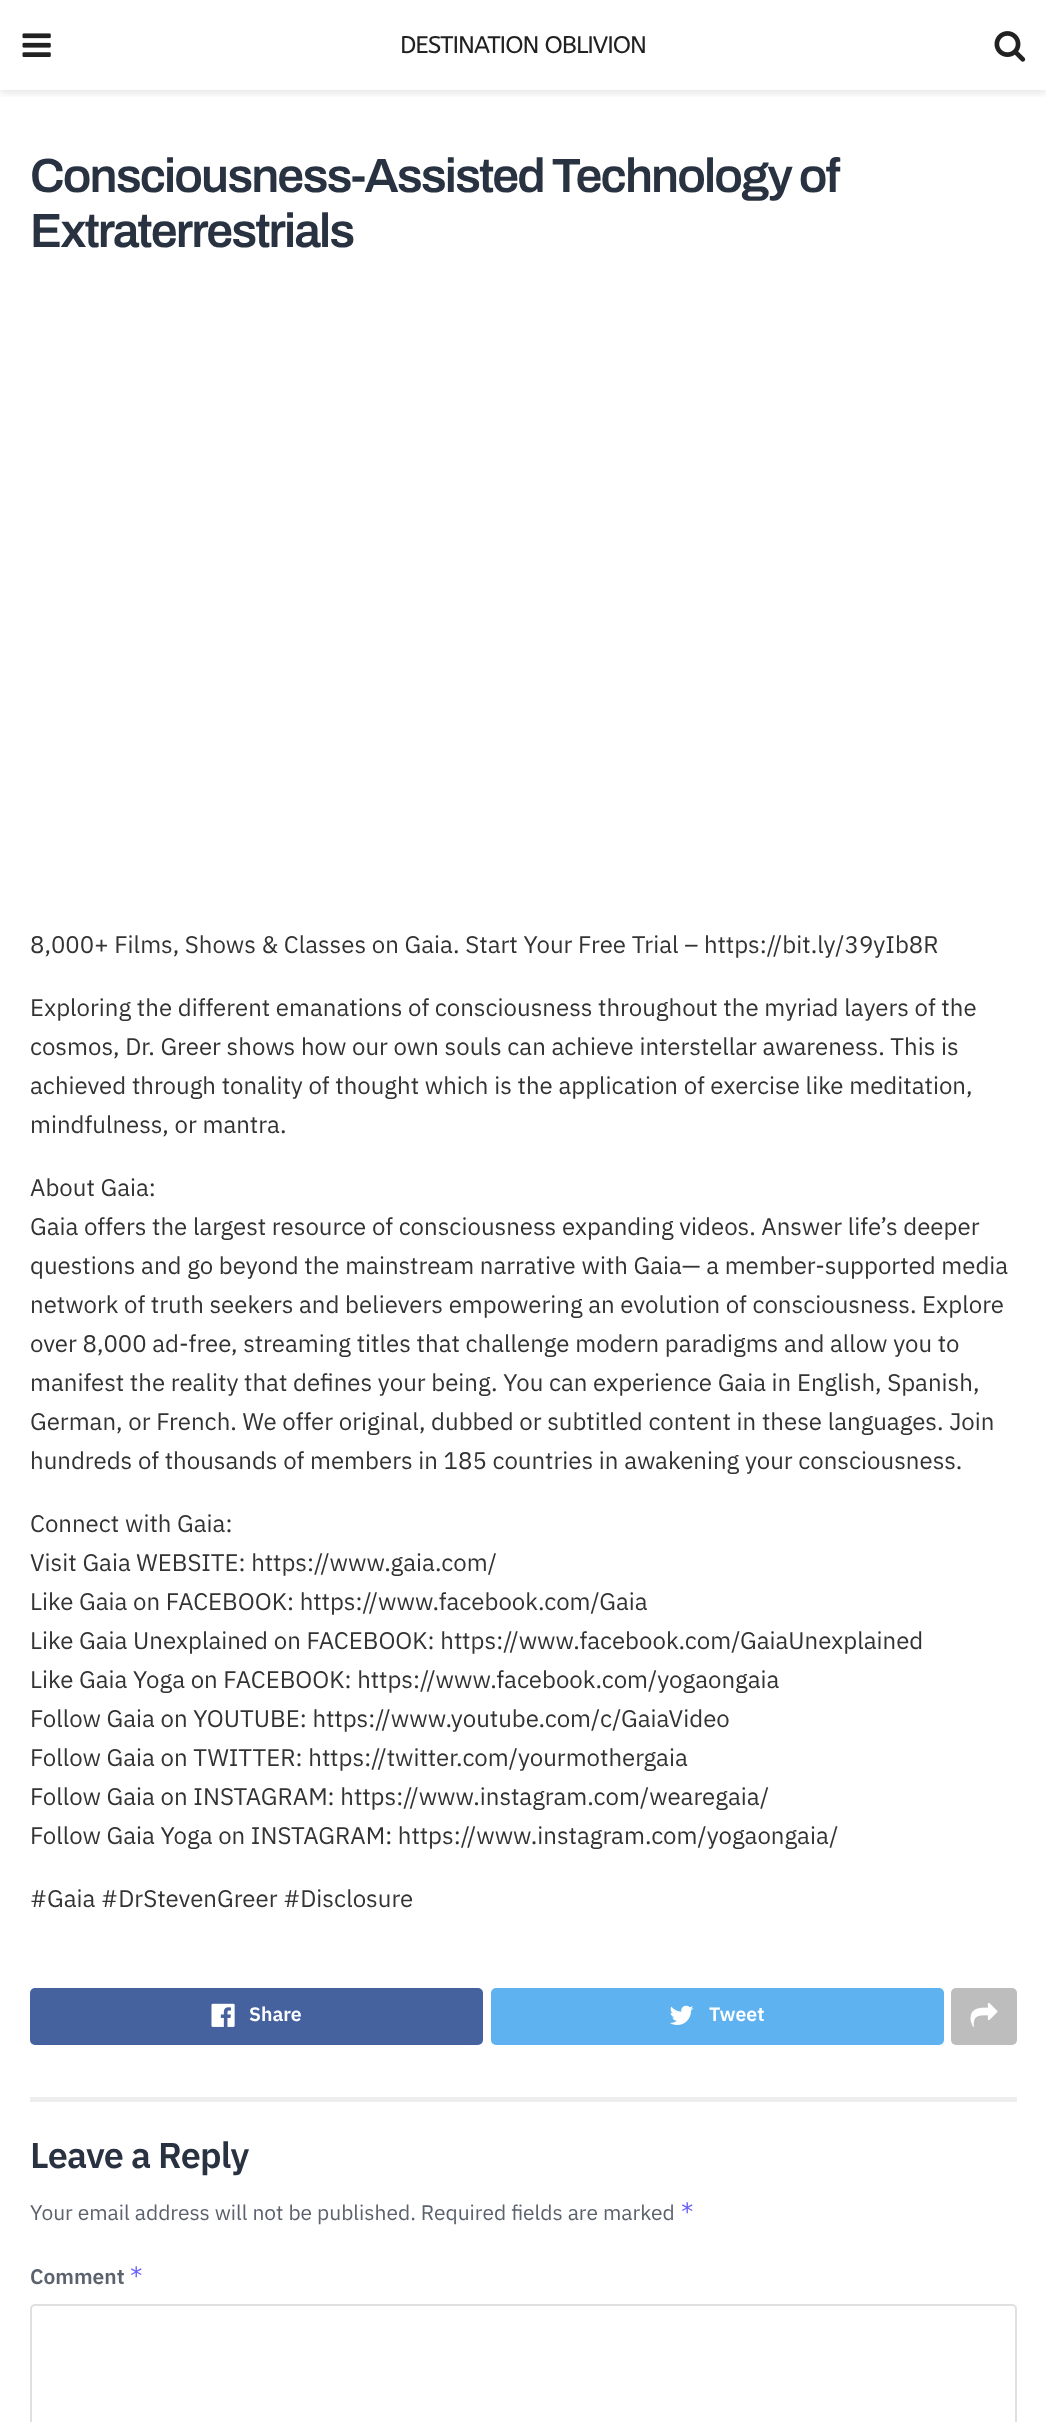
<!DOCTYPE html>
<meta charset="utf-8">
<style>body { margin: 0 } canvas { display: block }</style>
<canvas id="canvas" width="1046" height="2422"></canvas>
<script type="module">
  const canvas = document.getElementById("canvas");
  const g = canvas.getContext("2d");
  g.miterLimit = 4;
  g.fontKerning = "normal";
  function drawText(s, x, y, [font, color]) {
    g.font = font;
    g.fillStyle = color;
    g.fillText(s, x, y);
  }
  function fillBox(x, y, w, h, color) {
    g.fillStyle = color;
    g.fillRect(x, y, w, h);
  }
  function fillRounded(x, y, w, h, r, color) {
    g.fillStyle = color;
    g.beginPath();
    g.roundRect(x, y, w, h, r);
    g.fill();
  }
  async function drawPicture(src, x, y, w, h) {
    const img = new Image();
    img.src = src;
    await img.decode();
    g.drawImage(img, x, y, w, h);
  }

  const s1 = ["24px ABeeZee", "#212121"];
  const s2 = ["600 48px Archivo", "#293241"];
  const s3 = ["24px IBM Plex Sans", "#333333"];
  const s4 = ["600 19.5px IBM Plex Sans", "#FFFFFF"];
  const s5 = ["600 36px IBM Plex Sans", "#293241"];
  const s6 = ["21px IBM Plex Sans", "#5B626E"];
  const s7 = ["24px DejaVu Sans Mono", "#6A5FFC"];
  const s8 = ["600 21px IBM Plex Sans", "#5B626E"];

  fillBox(0, 0, 1046, 2422, "#FFFFFF");
  g.save();
  g.beginPath();
  g.rect(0, 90, 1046, 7);
  g.clip();
  g.fillStyle = "rgba(0, 0, 0, 0.1)";
  g.filter = "blur(4.5px)";
  g.beginPath();
  g.rect(0, 3, 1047, 90);
  g.fill();
  g.filter = "none";
  g.restore();
  await drawPicture("pic1.png", 22, 33, 29, 24);
  g.letterSpacing = "-1px";
  drawText("DESTINATION OBLIVION", 400, 53, s1);
  await drawPicture("pic2.png", 994, 31, 32, 31);
  g.letterSpacing = "-1.9px";
  drawText("Consciousness-Assisted Technology of", 30, 192, s2);
  drawText("Extraterrestrials", 30, 247, s2);
  g.letterSpacing = "0px";
  drawText("8,000+ Films, Shows & Classes on Gaia. Start Your Free Trial – https://bit.ly/39yIb8R", 30, 953, s3);
  drawText("Exploring the different emanations of consciousness throughout the myriad layers of the", 30, 1016, s3);
  drawText("cosmos, Dr. Greer shows how our own souls can achieve interstellar awareness. This is", 30, 1055, s3);
  drawText("achieved through tonality of thought which is the application of exercise like meditation,", 30, 1094, s3);
  drawText("mindfulness, or mantra.", 30, 1133, s3);
  drawText("About Gaia:", 30, 1196, s3);
  drawText("Gaia offers the largest resource of consciousness expanding videos. Answer life’s deeper", 30, 1235, s3);
  drawText("questions and go beyond the mainstream narrative with Gaia— a member-supported media", 30, 1274, s3);
  drawText("network of truth seekers and believers empowering an evolution of consciousness. Explore", 30, 1313, s3);
  drawText("over 8,000 ad-free, streaming titles that challenge modern paradigms and allow you to", 30, 1352, s3);
  drawText("manifest the reality that defines your being. You can experience Gaia in English, Spanish,", 30, 1391, s3);
  drawText("German, or French. We offer original, dubbed or subtitled content in these languages. Join", 30, 1430, s3);
  drawText("hundreds of thousands of members in 185 countries in awakening your consciousness.", 30, 1469, s3);
  drawText("Connect with Gaia:", 30, 1532, s3);
  drawText("Visit Gaia WEBSITE: https://www.gaia.com/", 30, 1571, s3);
  drawText("Like Gaia on FACEBOOK: https://www.facebook.com/Gaia", 30, 1610, s3);
  drawText("Like Gaia Unexplained on FACEBOOK: https://www.facebook.com/GaiaUnexplained", 30, 1649, s3);
  drawText("Like Gaia Yoga on FACEBOOK: https://www.facebook.com/yogaongaia", 30, 1688, s3);
  drawText("Follow Gaia on YOUTUBE: https://www.youtube.com/c/GaiaVideo", 30, 1727, s3);
  drawText("Follow Gaia on TWITTER: https://twitter.com/yourmothergaia", 30, 1766, s3);
  drawText("Follow Gaia on INSTAGRAM: https://www.instagram.com/wearegaia/", 30, 1805, s3);
  drawText("Follow Gaia Yoga on INSTAGRAM: https://www.instagram.com/yogaongaia/", 30, 1844, s3);
  drawText("#Gaia #DrStevenGreer #Disclosure", 30, 1907, s3);
  fillRounded(30, 1988, 453, 57, 5, "#45629F");
  await drawPicture("pic3.png", 211, 2003, 24, 24);
  drawText("Share", 249, 2021, s4);
  fillRounded(491, 1988, 453, 57, 5, "#5EB2EF");
  await drawPicture("pic4.png", 669, 2005, 25, 20);
  drawText("Tweet", 709, 2021, s4);
  fillRounded(951, 1988, 66, 57, 5, "#BDBDBD");
  await drawPicture("pic5.png", 970, 2002, 28, 25);
  fillBox(30, 2097, 987, 5, "#EEEEEE");
  g.letterSpacing = "-0.75px";
  drawText("Leave a Reply", 30, 2168, s5);
  g.letterSpacing = "0px";
  drawText("Your email address will not be published. Required fields are marked", 30, 2220, s6);
  drawText("*", 680, 2220, s7);
  drawText("Comment", 30, 2284, s8);
  drawText("*", 129, 2284, s7);
  g.beginPath();
  g.roundRect(31, 2305, 985, 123, 4);
  g.strokeStyle = "#E0E0E0";
  g.lineWidth = 2;
  g.stroke();
</script>
